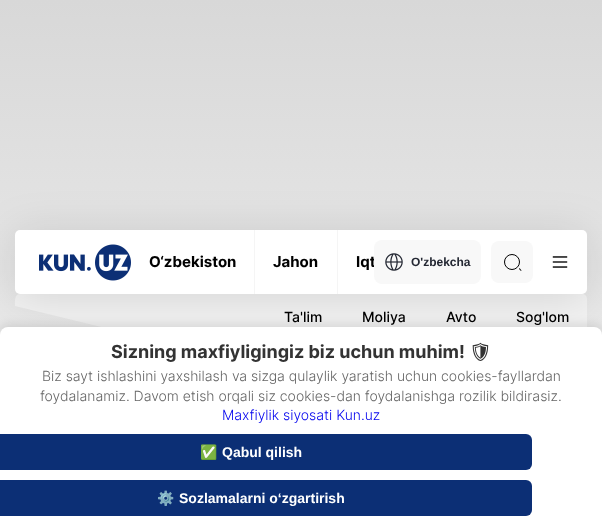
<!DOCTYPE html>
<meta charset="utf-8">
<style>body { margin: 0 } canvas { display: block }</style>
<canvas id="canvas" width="602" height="531"></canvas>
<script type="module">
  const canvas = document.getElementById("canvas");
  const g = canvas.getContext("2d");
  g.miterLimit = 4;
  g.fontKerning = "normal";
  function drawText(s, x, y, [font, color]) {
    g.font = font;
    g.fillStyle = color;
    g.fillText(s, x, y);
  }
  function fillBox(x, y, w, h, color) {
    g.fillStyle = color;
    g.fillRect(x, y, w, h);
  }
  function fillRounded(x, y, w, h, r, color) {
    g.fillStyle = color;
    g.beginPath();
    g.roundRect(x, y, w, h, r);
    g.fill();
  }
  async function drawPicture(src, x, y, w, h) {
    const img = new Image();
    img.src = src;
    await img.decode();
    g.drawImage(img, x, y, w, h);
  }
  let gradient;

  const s1 = ["bold 15px Inter", "#000000"];
  const s2 = ["bold 12px Liberation Sans", "#242833"];
  const s3 = ["500 14px Inter", "#000000"];
  const s4 = ["bold 18px Inter", "#333333"];
  const s5 = ["bold 18px Noto Emoji", "#333333"];
  const s6 = ["300 14px Inter", "#666666"];
  const s7 = ["300 14px Inter", "#0000EE"];
  const s8 = ["bold 14px Noto Color Emoji", "#FFFFFF"];
  const s9 = ["bold 14px Liberation Sans", "#FFFFFF"];

  fillBox(0, 0, 602, 531, "#FFFFFF");
  gradient = g.createLinearGradient(301, 0, 301, 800);
  gradient.addColorStop(0, "#D8D8D8");
  gradient.addColorStop(1, "#FFFFFF");
  g.fillStyle = gradient;
  g.fillRect(0, 0, 602, 335);
  g.fillStyle = "#F2F2F2";
  g.beginPath();
  g.moveTo(20, 294);
  g.bezierCurveTo(14, 294, 15, 302, 15, 306);
  g.lineTo(118, 331);
  g.lineTo(587, 331);
  g.lineTo(587, 299);
  g.bezierCurveTo(587, 296, 585, 294, 582, 294);
  g.closePath();
  g.fill();
  g.fillStyle = "rgba(0, 0, 0, 0.12)";
  g.filter = "blur(22px)";
  g.beginPath();
  g.roundRect(15, 234, 572, 64, 5);
  g.fill();
  g.filter = "none";
  fillRounded(15, 230, 572, 64, 5, "#FFFFFF");
  await drawPicture("pic1.png", 39, 244, 92, 37);
  fillBox(254, 230, 1, 64, "#F5F5F5");
  drawText("O‘zbekiston", 149, 267, s1);
  fillBox(337, 230, 1, 64, "#F5F5F5");
  drawText("Jahon", 273, 267, s1);
  drawText("Iqt", 356, 267, s1);
  fillRounded(374, 240, 107, 44, 8, "#F8F8F8");
  await drawPicture("pic2.png", 385, 253, 18, 18);
  drawText("O'zbekcha", 411, 266, s2);
  fillRounded(491, 241, 42, 42, 8, "#F8F8F8");
  g.beginPath();
  g.arc(512, 262, 7.5, 0, Math.PI * 2);
  g.strokeStyle = "#000000";
  g.stroke();
  g.fillStyle = "#000000";
  g.beginPath();
  g.moveTo(519.5, 268);
  g.lineTo(521.5, 270.5);
  g.lineTo(521, 271);
  g.lineTo(519, 269);
  g.closePath();
  g.fill();
  await drawPicture("pic3.png", 552, 256, 16, 12);
  drawText("Ta'lim", 284, 322, s3);
  drawText("Moliya", 362, 322, s3);
  drawText("Avto", 446, 322, s3);
  drawText("Sog'lom", 516, 322, s3);
  g.fillStyle = "rgba(0, 0, 0, 0.1)";
  g.filter = "blur(5px)";
  g.beginPath();
  g.roundRect(0, 324, 602, 204, 8);
  g.fill();
  g.filter = "none";
  g.fillStyle = "#FFFFFF";
  g.beginPath();
  g.roundRect(0, 327, 602, 204, [8, 8, 0, 0]);
  g.fill();
  drawText("Sizning maxfiyligingiz biz uchun muhim!", 111, 358, s4);
  drawText("🛡", 469, 358, s5);
  drawText("Biz sayt ishlashini yaxshilash va sizga qulaylik yaratish uchun cookies-fayllardan", 42, 381, s6);
  drawText("foydalanamiz. Davom etish orqali siz cookies-dan foydalanishga rozilik bildirasiz.", 40, 401, s6);
  drawText("Maxfiylik siyosati Kun.uz", 222, 420, s7);
  fillRounded(-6, 434, 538, 36, 6, "#0C2F75");
  drawText("✅", 200, 457, s8);
  drawText("Qabul qilish", 222, 457, s9);
  fillRounded(-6, 480, 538, 36, 6, "#0C2F75");
  drawText("⚙️", 157, 503, s8);
  drawText("Sozlamalarni o‘zgartirish", 179, 503, s9);
</script>
